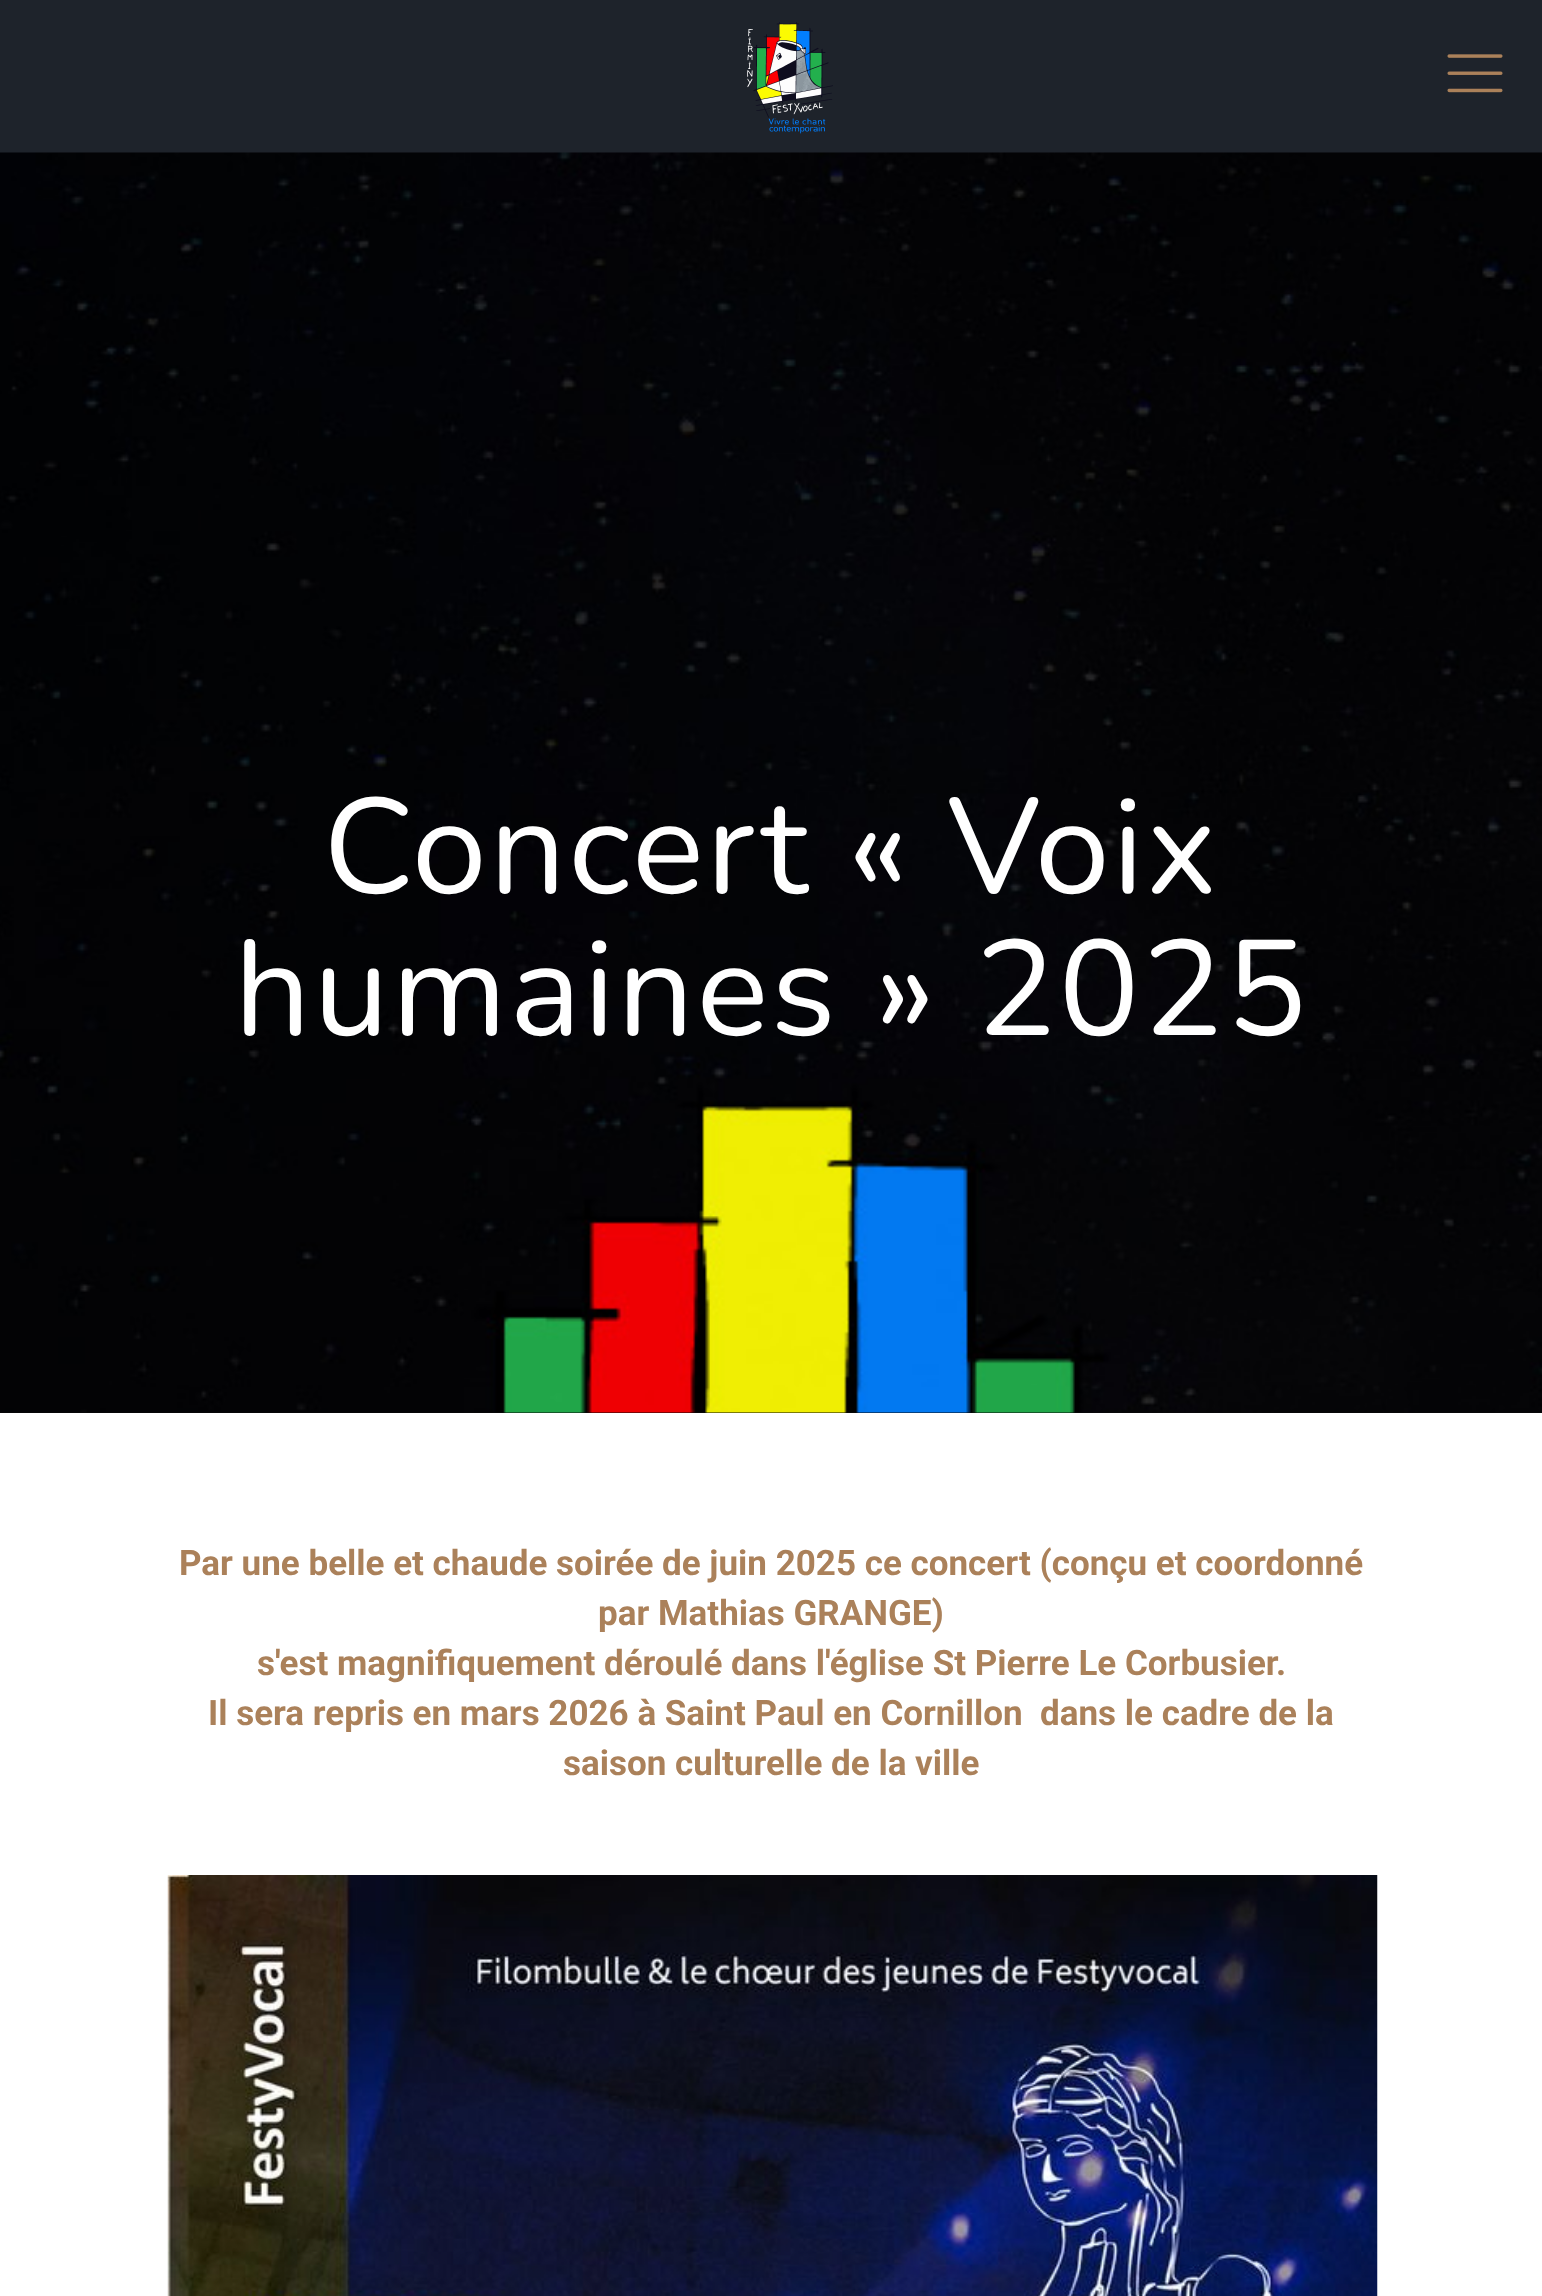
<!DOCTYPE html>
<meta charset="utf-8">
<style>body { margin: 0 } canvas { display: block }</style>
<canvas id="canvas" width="1542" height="2296"></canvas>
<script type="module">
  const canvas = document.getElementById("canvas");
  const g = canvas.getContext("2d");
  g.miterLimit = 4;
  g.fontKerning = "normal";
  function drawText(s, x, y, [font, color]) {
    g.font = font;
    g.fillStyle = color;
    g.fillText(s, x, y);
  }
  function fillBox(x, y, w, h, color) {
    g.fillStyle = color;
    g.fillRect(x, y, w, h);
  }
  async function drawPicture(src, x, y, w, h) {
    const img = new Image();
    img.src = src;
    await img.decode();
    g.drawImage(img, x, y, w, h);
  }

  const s1 = ["135px Nunito", "#FFFFFF"];
  const s2 = ["bold 35px Roboto", "#AB815A"];

  fillBox(0, 0, 1542, 2296, "#FFFFFF");
  fillBox(0, 0, 1542, 153, "#1E232B");
  await drawPicture("pic1.png", 747, 22, 86, 112);
  await drawPicture("pic2.png", 1447, 54, 56, 39);
  fillBox(0, 1412, 1542, 1, "#0A0A0A");
  await drawPicture("pic3.png", 0, 152, 1542, 1261);
  g.letterSpacing = "2.5px";
  drawText("Concert « Voix", 323, 893, s1);
  drawText("humaines » 2025", 234, 1035, s1);
  g.letterSpacing = "0px";
  drawText("Par une belle et chaude soirée de juin 2025 ce concert (conçu et coordonné", 179, 1575, s2);
  drawText("par Mathias GRANGE)", 598, 1625, s2);
  drawText("s'est magnifiquement déroulé dans l'église St Pierre Le Corbusier.", 257, 1675, s2);
  drawText("Il sera repris en mars 2026 à Saint Paul en Cornillon  dans le cadre de la", 208, 1725, s2);
  drawText("saison culturelle de la ville", 563, 1775, s2);
  await drawPicture("pic4.png", 167, 1875, 1211, 421);
</script>
